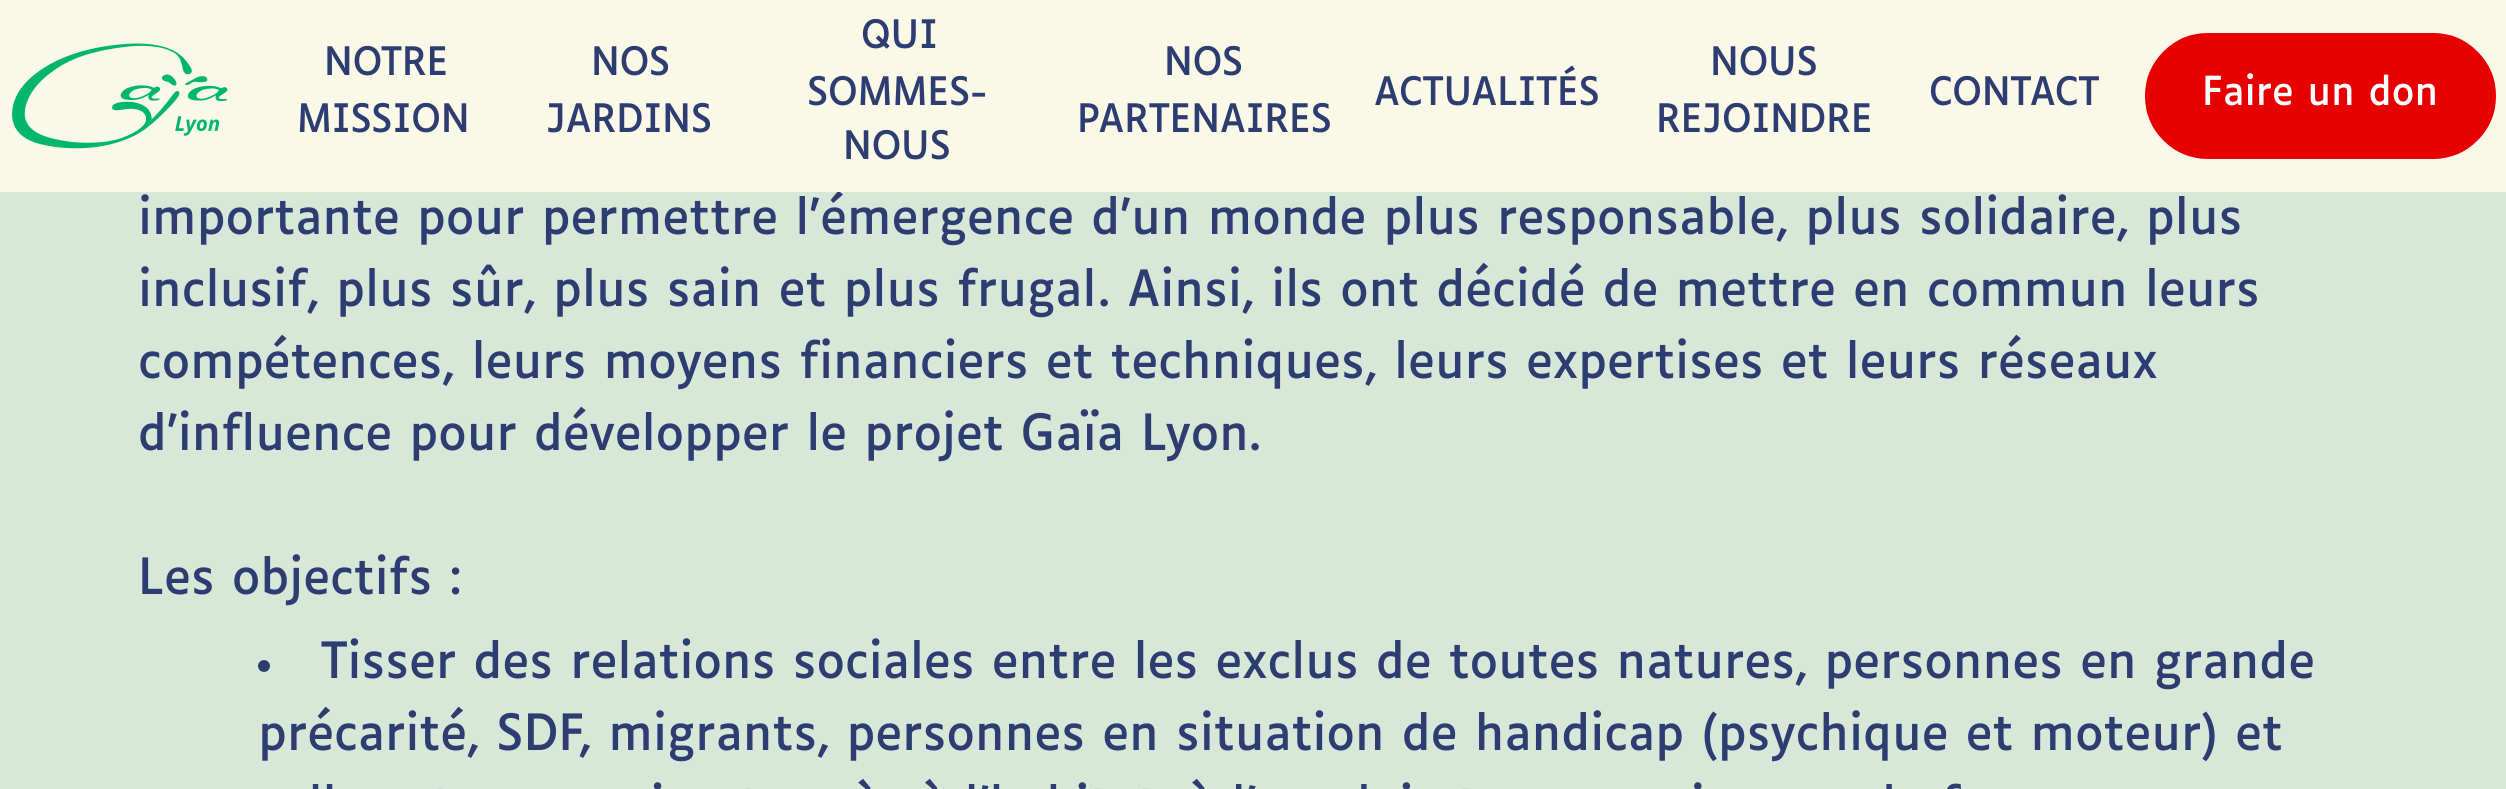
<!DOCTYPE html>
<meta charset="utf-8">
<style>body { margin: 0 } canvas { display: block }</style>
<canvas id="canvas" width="2506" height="789"></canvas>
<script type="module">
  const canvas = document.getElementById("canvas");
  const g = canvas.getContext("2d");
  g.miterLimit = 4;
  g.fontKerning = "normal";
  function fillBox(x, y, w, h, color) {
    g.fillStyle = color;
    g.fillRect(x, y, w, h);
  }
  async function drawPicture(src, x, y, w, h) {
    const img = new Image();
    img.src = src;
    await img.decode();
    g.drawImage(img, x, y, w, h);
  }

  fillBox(0, 0, 2506, 789, "#D7E7D8");
  fillBox(0, 0, 2506, 192, "#FAF8E6");
  await drawPicture("pic1.png", 12, 43, 216, 106);
  await drawPicture("pic2.png", 327, 45, 119, 31);
  await drawPicture("pic3.png", 299, 102, 168, 31);
  await drawPicture("pic4.png", 594, 45, 75, 31);
  await drawPicture("pic5.png", 548, 102, 163, 31);
  await drawPicture("pic6.png", 862, 18, 74, 31);
  await drawPicture("pic7.png", 809, 75, 177, 31);
  await drawPicture("pic8.png", 846, 129, 103, 31);
  await drawPicture("pic4.png", 1167, 45, 75, 31);
  await drawPicture("pic9.png", 1080, 102, 250, 31);
  await drawPicture("pic10.png", 1375, 65, 223, 41);
  await drawPicture("pic8.png", 1713, 45, 103, 31);
  await drawPicture("pic11.png", 1659, 102, 211, 31);
  await drawPicture("pic12.png", 1930, 75, 169, 31);
  g.fillStyle = "#E70000";
  g.beginPath();
  g.roundRect(2149.5, 37.5, 342, 117, 58.5);
  g.fill();
  g.strokeStyle = "#E70000";
  g.lineWidth = 9;
  g.stroke();
  await drawPicture("pic13.png", 2205, 73, 230, 33);
  await drawPicture("pic14.png", 141, 192, 2099, 54);
  await drawPicture("pic15.png", 141, 264, 952, 54);
  await drawPicture("pic16.png", 1100, 262, 1157, 52);
  await drawPicture("pic17.png", 140, 334, 2017, 56);
  await drawPicture("pic18.png", 140, 406, 1119, 56);
  await drawPicture("pic19.png", 142, 554, 318, 52);
  g.fillStyle = "#2D3D71";
  g.beginPath();
  g.arc(264, 666, 6, 0, Math.PI * 2);
  g.fill();
  await drawPicture("pic20.png", 321, 638, 1992, 52);
  await drawPicture("pic21.png", 262, 706, 2019, 56);
  await drawPicture("pic22.png", 312, 778, 1649, 11);
</script>
